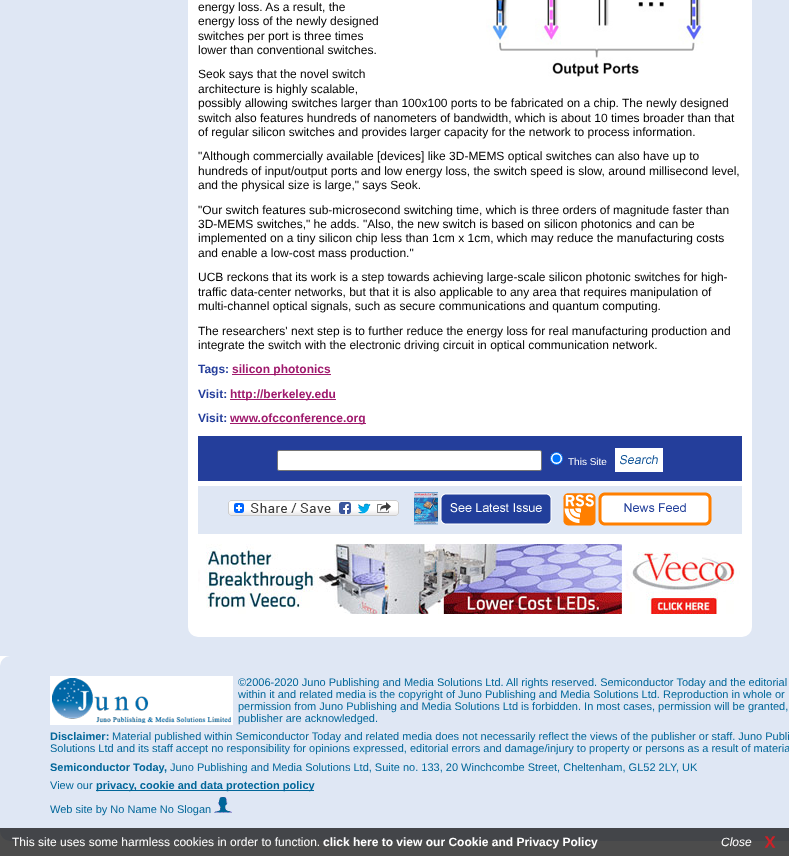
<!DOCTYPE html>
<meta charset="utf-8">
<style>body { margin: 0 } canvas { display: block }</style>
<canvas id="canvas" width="789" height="856"></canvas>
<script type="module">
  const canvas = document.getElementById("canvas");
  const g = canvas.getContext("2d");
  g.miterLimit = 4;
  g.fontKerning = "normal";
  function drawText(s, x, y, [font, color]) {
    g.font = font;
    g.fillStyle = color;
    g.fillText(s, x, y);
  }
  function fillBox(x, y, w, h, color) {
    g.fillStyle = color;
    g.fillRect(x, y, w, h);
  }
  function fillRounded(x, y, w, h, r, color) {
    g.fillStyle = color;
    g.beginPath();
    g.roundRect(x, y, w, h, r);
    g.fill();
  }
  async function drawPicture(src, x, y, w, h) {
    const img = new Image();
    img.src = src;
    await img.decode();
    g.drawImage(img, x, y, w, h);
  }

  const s1 = ["12px Liberation Sans", "#000000"];
  const s2 = ["bold 12px Liberation Sans", "#243E9B"];
  const s3 = ["bold 12px Liberation Sans", "#9F196C"];
  const s4 = ["10px Liberation Sans", "#FFFFFF"];
  const s5 = ["11px Liberation Sans", "#006699"];
  const s6 = ["bold 11px Liberation Sans", "#006699"];
  const s7 = ["12px Liberation Sans", "#FFFFFF"];
  const s8 = ["bold 12px Liberation Sans", "#FFFFFF"];
  const s9 = ["italic 12px Liberation Sans", "#FFFFFF"];

  fillBox(0, 0, 789, 856, "#FFFFFF");
  fillBox(0, 0, 789, 656, "#DFE7F4");
  fillRounded(188, -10, 564, 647, 10, "#FFFFFF");
  drawText("energy loss. As a result, the", 198, 11, s1);
  drawText("energy loss of the newly designed", 198, 25, s1);
  drawText("switches per port is three times", 198, 40, s1);
  drawText("lower than conventional switches.", 198, 54, s1);
  await drawPicture("pic1.png", 486, 0, 218, 77);
  drawText("Seok says that the novel switch", 198, 78, s1);
  drawText("architecture is highly scalable,", 198, 93, s1);
  drawText("possibly allowing switches larger than 100x100 ports to be fabricated on a chip. The newly designed", 198, 107, s1);
  drawText("switch also features hundreds of nanometers of bandwidth, which is about 10 times broader than that", 198, 122, s1);
  drawText("of regular silicon switches and provides larger capacity for the network to process information.", 198, 136, s1);
  drawText("\"Although commercially available [devices] like 3D-MEMS optical switches can also have up to", 198, 160, s1);
  drawText("hundreds of input/output ports and low energy loss, the switch speed is slow, around millisecond level,", 198, 175, s1);
  drawText("and the physical size is large,\" says Seok.", 198, 189, s1);
  drawText("\"Our switch features sub-microsecond switching time, which is three orders of magnitude faster than", 198, 214, s1);
  drawText("3D-MEMS switches,\" he adds. \"Also, the new switch is based on silicon photonics and can be", 198, 228, s1);
  drawText("implemented on a tiny silicon chip less than 1cm x 1cm, which may reduce the manufacturing costs", 198, 242, s1);
  drawText("and enable a low-cost mass production.\"", 198, 257, s1);
  drawText("UCB reckons that its work is a step towards achieving large-scale silicon photonic switches for high-", 198, 281, s1);
  drawText("traffic data-center networks, but that it is also applicable to any area that requires manipulation of", 198, 296, s1);
  drawText("multi-channel optical signals, such as secure communications and quantum computing.", 198, 310, s1);
  drawText("The researchers' next step is to further reduce the energy loss for real manufacturing production and", 198, 335, s1);
  drawText("integrate the switch with the electronic driving circuit in optical communication network.", 198, 349, s1);
  drawText("Tags:", 198, 373, s2);
  fillBox(232, 374, 99, 1, "#9F196C");
  drawText("silicon photonics", 232, 373, s3);
  drawText("Visit:", 198, 398, s2);
  fillBox(230, 399, 106, 1, "#9F196C");
  drawText("http://berkeley.edu", 230, 398, s3);
  drawText("Visit:", 198, 422, s2);
  fillBox(230, 423, 136, 1, "#9F196C");
  drawText("www.ofcconference.org", 230, 422, s3);
  fillBox(198, 436, 544, 45, "#243E9B");
  g.fillStyle = "#FFFFFF";
  g.beginPath();
  g.roundRect(277.5, 450.5, 264, 20, 1.5);
  g.fill();
  g.strokeStyle = "#767676";
  g.stroke();
  g.beginPath();
  g.arc(556.5, 458.5, 6, 0, Math.PI * 2);
  g.fill();
  g.strokeStyle = "#0075FF";
  g.stroke();
  g.fillStyle = "#0075FF";
  g.beginPath();
  g.arc(556.5, 458.5, 4, 0, Math.PI * 2);
  g.fill();
  drawText("This Site", 568, 465, s4);
  await drawPicture("pic2.png", 615, 448, 48, 24);
  fillBox(198, 486, 544, 48, "#DFE7F4");
  await drawPicture("pic3.png", 228, 500, 171, 16);
  await drawPicture("pic4.png", 414, 492, 138, 33);
  await drawPicture("pic5.png", 563, 492, 149, 34);
  await drawPicture("pic6.png", 198, 544, 542, 70);
  fillRounded(0, 656, 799, 185, 10, "#DFE7F4");
  g.strokeStyle = "#FFFFFF";
  g.lineWidth = 2;
  g.strokeRect(51, 677, 181, 47);
  await drawPicture("pic7.png", 52, 678, 179, 45);
  drawText("©2006-2020 Juno Publishing and Media Solutions Ltd. All rights reserved. Semiconductor Today and the editorial", 238, 686, s5);
  drawText("within it and related media is the copyright of Juno Publishing and Media Solutions Ltd. Reproduction in whole or", 238, 698, s5);
  drawText("permission from Juno Publishing and Media Solutions Ltd is forbidden. In most cases, permission will be granted,", 238, 710, s5);
  drawText("publisher are acknowledged.", 238, 722, s5);
  drawText("Disclaimer:", 50, 740, s6);
  drawText("Material published within Semiconductor Today and related media does not necessarily reflect the views of the publisher or staff. Juno Publi", 112, 740, s5);
  drawText("Solutions Ltd and its staff accept no responsibility for opinions expressed, editorial errors and damage/injury to property or persons as a result of materia", 50, 752, s5);
  drawText("Semiconductor Today,", 50, 771, s6);
  drawText("Juno Publishing and Media Solutions Ltd, Suite no. 133, 20 Winchcombe Street, Cheltenham, GL52 2LY, UK", 170, 771, s5);
  drawText("View our", 50, 789, s5);
  fillBox(96, 790, 218, 1, "#006699");
  drawText("privacy, cookie and data protection policy", 96, 789, s6);
  drawText("Web site by No Name No Slogan", 50, 813, s5);
  await drawPicture("pic8.png", 214, 797, 18, 16);
  fillBox(0, 828, 789, 28, "rgba(0, 0, 0, 0.7)");
  drawText("This site uses some harmless cookies in order to function.", 12, 846, s7);
  drawText("click here to view our Cookie and Privacy Policy", 323, 846, s8);
  await drawPicture("pic9.png", 764, 836, 12, 12);
  drawText("Close", 721, 846, s9);
</script>
